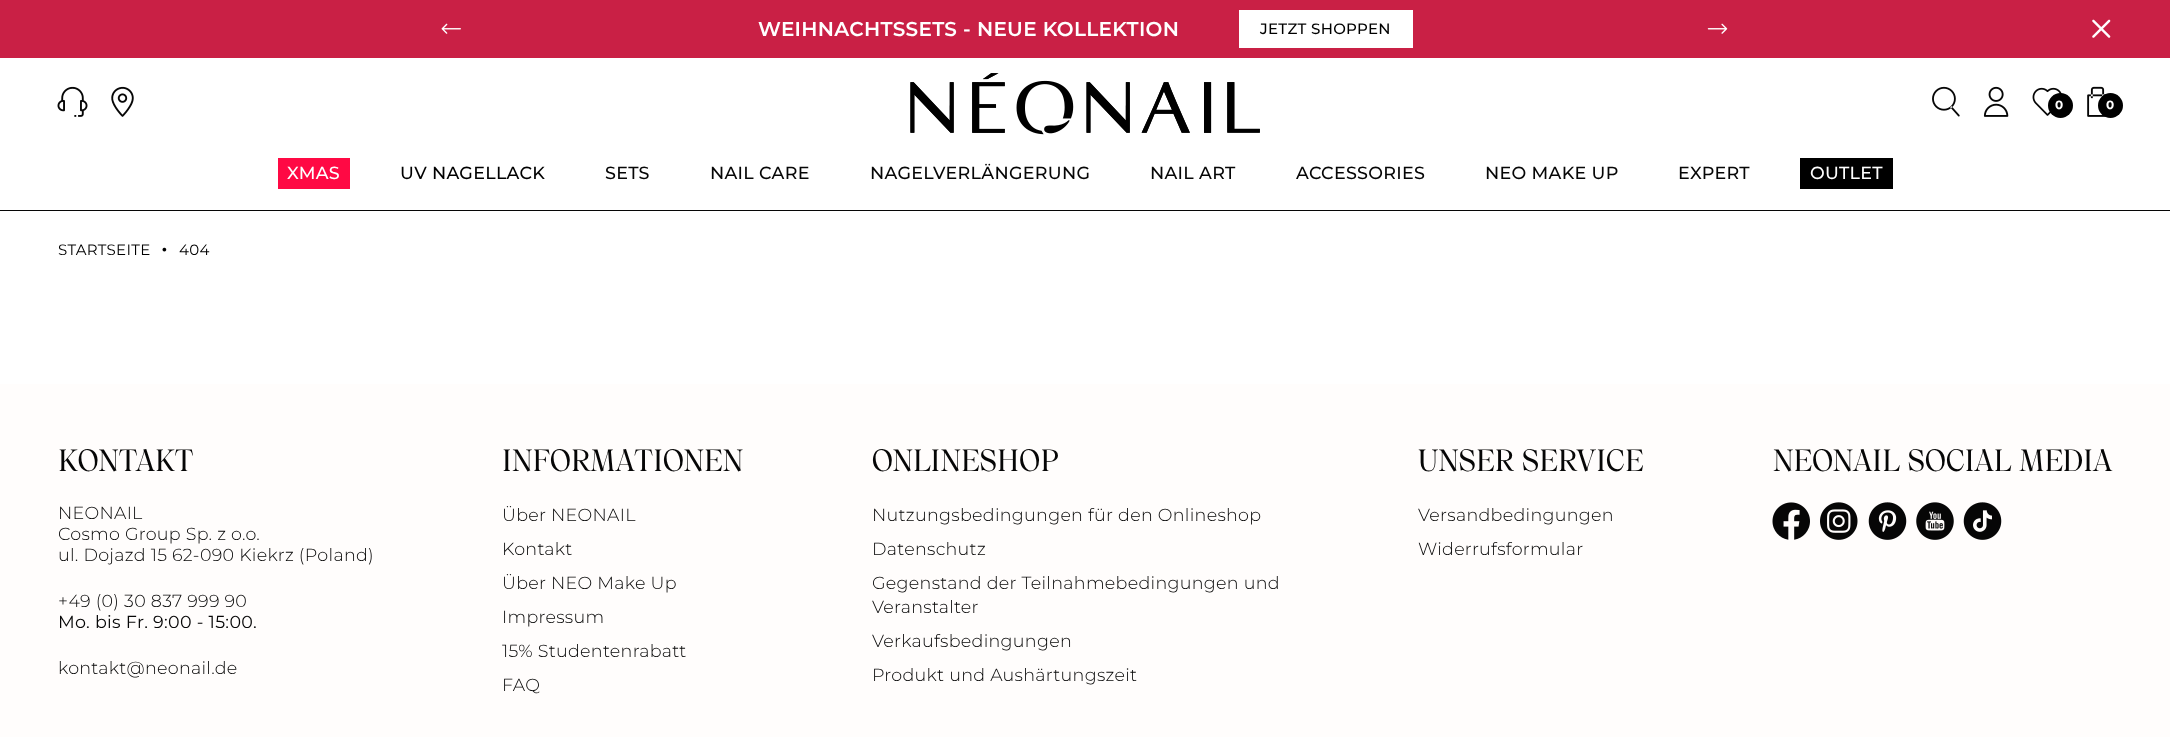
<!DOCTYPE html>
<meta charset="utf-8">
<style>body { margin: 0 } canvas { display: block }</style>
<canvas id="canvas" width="2170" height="737"></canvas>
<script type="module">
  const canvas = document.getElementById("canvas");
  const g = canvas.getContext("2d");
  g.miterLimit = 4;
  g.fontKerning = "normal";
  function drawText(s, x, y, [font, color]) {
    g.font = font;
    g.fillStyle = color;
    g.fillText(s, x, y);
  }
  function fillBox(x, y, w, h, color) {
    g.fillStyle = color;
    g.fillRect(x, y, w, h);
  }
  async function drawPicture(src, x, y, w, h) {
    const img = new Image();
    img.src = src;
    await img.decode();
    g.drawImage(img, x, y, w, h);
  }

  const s1 = ["600 20px Montserrat", "#FFFFFF"];
  const s2 = ["500 15px Montserrat", "#000000"];
  const s3 = ["bold 12px Montserrat", "#FFFFFF"];
  const s4 = ["500 17.5px Montserrat", "#FFFFFF"];
  const s5 = ["500 17.5px Montserrat", "#000000"];
  const s6 = ["500 17.5px Montserrat", "#060606"];
  const s7 = ["15px Montserrat", "#000000"];
  const s8 = ["500 30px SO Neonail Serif", "#060606"];
  const s9 = ["300 17.5px Montserrat", "#060606"];
  const s10 = ["17.5px Montserrat", "#060606"];

  fillBox(0, 0, 2170, 737, "#FFFFFF");
  fillBox(0, 0, 2170, 58, "#C92045");
  await drawPicture("pic1.png", 441, 23, 20, 11);
  g.letterSpacing = "0.3px";
  drawText("WEIHNACHTSSETS - NEUE KOLLEKTION", 758, 36, s1);
  fillBox(1239, 10, 174, 38, "#FFFFFF");
  drawText("JETZT SHOPPEN", 1260, 34, s2);
  await drawPicture("pic2.png", 1707, 23, 21, 11);
  await drawPicture("pic3.png", 2092, 19, 19, 19);
  fillBox(0, 210, 2170, 1, "#060606");
  await drawPicture("pic4.png", 57, 86, 31, 31);
  await drawPicture("pic5.png", 111, 86, 23, 31);
  await drawPicture("pic6.png", 910, 73, 350, 62);
  await drawPicture("pic7.png", 1932, 86, 28, 31);
  await drawPicture("pic8.png", 1983, 86, 26, 31);
  await drawPicture("pic9.png", 2032, 87, 30, 29);
  g.fillStyle = "#000000";
  g.beginPath();
  g.arc(2060.5, 105.5, 12.5, 0, Math.PI * 2);
  g.fill();
  drawText("0", 2055, 109, s3);
  await drawPicture("pic10.png", 2087, 86, 19, 31);
  g.fillStyle = "#000000";
  g.beginPath();
  g.arc(2110.5, 105.5, 12.5, 0, Math.PI * 2);
  g.fill();
  drawText("0", 2106, 109, s3);
  fillBox(278, 158, 72, 31, "#FF0944");
  drawText("XMAS", 287, 179, s4);
  drawText("UV NAGELLACK", 400, 179, s5);
  drawText("SETS", 605, 179, s6);
  drawText("NAIL CARE", 710, 179, s6);
  drawText("NAGELVERLÄNGERUNG", 870, 179, s6);
  drawText("NAIL ART", 1150, 179, s6);
  drawText("ACCESSORIES", 1296, 179, s6);
  drawText("NEO MAKE UP", 1485, 179, s6);
  drawText("EXPERT", 1678, 179, s6);
  fillBox(1800, 158, 93, 31, "#000000");
  drawText("OUTLET", 1810, 179, s4);
  drawText("STARTSEITE", 58, 255, s7);
  await drawPicture("pic11.png", 162, 247, 5, 5);
  drawText("404", 179, 255, s7);
  fillBox(0, 384, 2170, 353, "#FFFDFC");
  drawText("KONTAKT", 58, 471, s8);
  drawText("NEONAIL", 58, 519, s9);
  drawText("Cosmo Group Sp. z o.o.", 58, 540, s9);
  drawText("ul. Dojazd 15 62-090 Kiekrz (Poland)", 58, 561, s9);
  drawText("+49 (0) 30 837 999 90", 58, 607, s9);
  drawText("Mo. bis Fr. 9:00 - 15:00.", 58, 628, s10);
  drawText("kontakt@neonail.de", 58, 674, s9);
  drawText("INFORMATIONEN", 502, 471, s8);
  drawText("Über NEONAIL", 502, 521, s9);
  drawText("Kontakt", 502, 555, s9);
  drawText("Über NEO Make Up", 502, 589, s9);
  drawText("Impressum", 502, 623, s9);
  drawText("15% Studentenrabatt", 502, 657, s9);
  drawText("FAQ", 502, 691, s9);
  drawText("ONLINESHOP", 872, 471, s8);
  drawText("Nutzungsbedingungen für den Onlineshop", 872, 521, s9);
  drawText("Datenschutz", 872, 555, s9);
  drawText("Gegenstand der Teilnahmebedingungen und", 872, 589, s9);
  drawText("Veranstalter", 872, 613, s9);
  drawText("Verkaufsbedingungen", 872, 647, s9);
  drawText("Produkt und Aushärtungszeit", 872, 681, s9);
  drawText("UNSER SERVICE", 1418, 471, s8);
  drawText("Versandbedingungen", 1418, 521, s9);
  drawText("Widerrufsformular", 1418, 555, s9);
  drawText("NEONAIL SOCIAL MEDIA", 1773, 471, s8);
  await drawPicture("pic12.png", 1772, 502, 38, 38);
  await drawPicture("pic13.png", 1820, 502, 38, 38);
  await drawPicture("pic14.png", 1868, 502, 39, 38);
  await drawPicture("pic15.png", 1916, 502, 38, 38);
  await drawPicture("pic16.png", 1963, 502, 39, 38);
</script>
